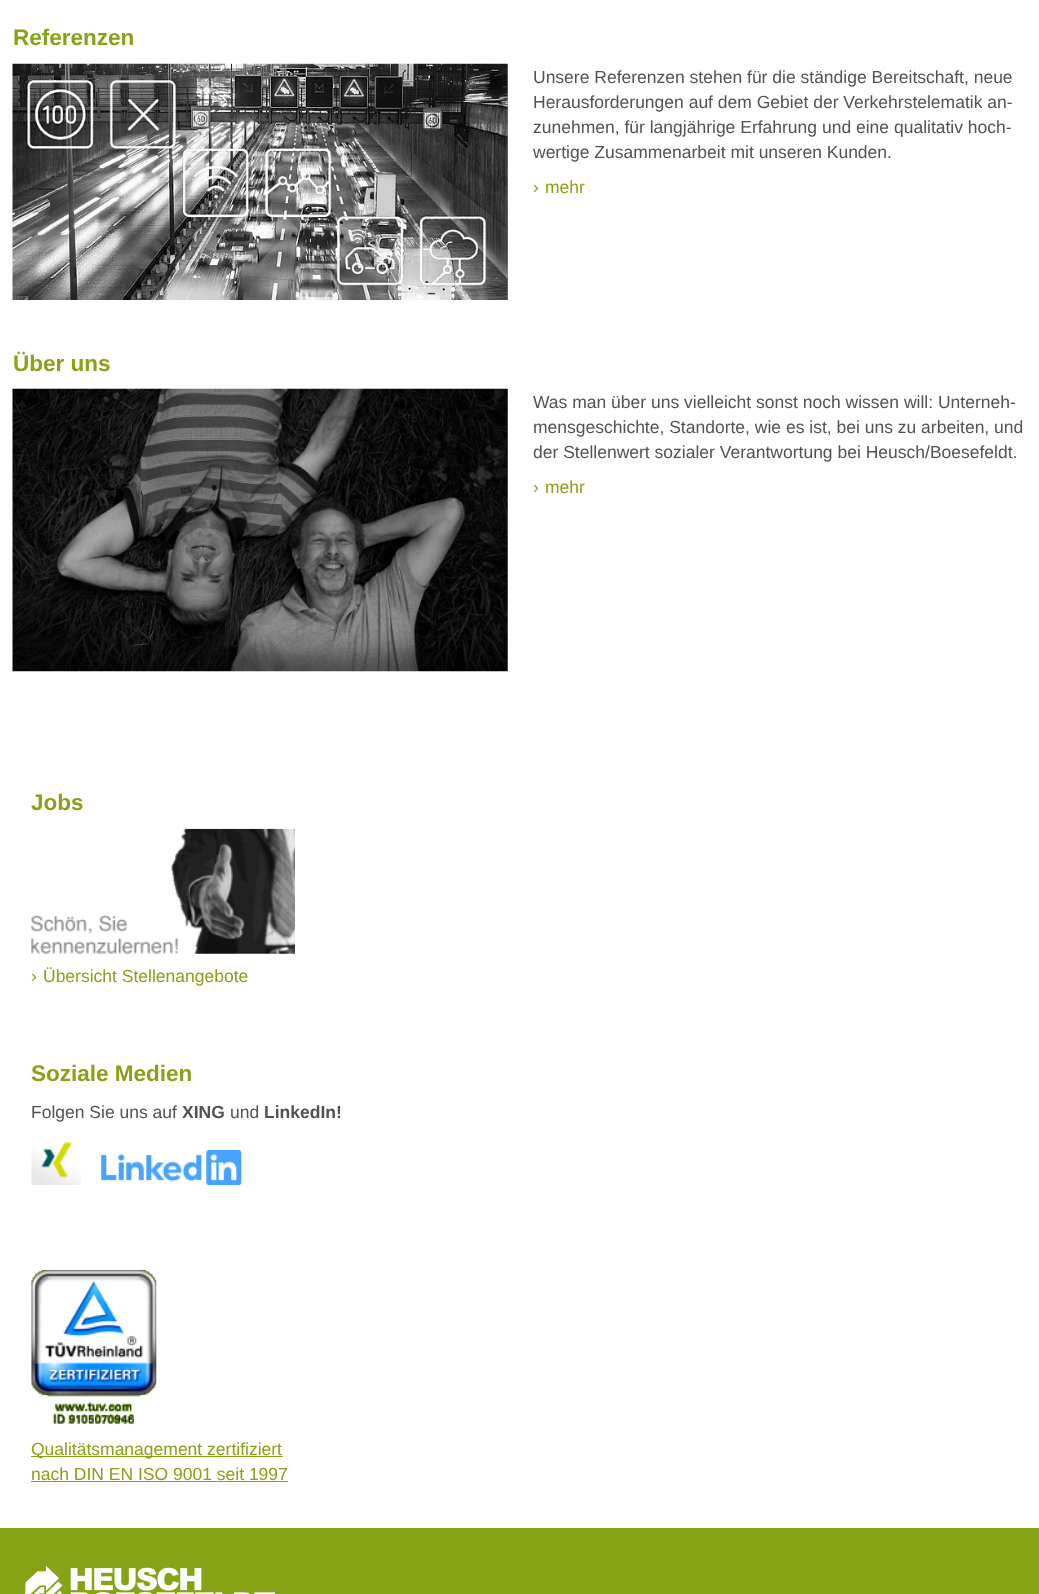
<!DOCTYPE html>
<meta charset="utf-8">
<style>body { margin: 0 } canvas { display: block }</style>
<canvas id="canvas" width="1039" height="1594"></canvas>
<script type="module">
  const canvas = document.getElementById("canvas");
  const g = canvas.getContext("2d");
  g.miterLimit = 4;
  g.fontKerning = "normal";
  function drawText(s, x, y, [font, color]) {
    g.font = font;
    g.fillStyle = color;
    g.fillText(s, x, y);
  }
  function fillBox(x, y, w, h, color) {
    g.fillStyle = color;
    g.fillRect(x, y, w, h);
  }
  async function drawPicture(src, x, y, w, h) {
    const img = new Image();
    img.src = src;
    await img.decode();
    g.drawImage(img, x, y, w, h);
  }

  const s1 = ["bold 22.5px Liberation Sans", "#86A315"];
  const s2 = ["17.5px Liberation Sans", "#525252"];
  const s3 = ["17.5px Liberation Sans", "#86A315"];
  const s4 = ["bold 17.5px Liberation Sans", "#525252"];

  fillBox(0, 0, 1039, 1594, "#86A315");
  fillBox(0, 0, 1039, 1528, "#FFFFFF");
  drawText("Referenzen", 13, 45, s1);
  fillBox(507, 64, 1, 236, "#86A315");
  await drawPicture("pic1.png", 12, 63, 496, 237);
  drawText("Unsere Referenzen stehen für die ständige Bereitschaft, neue", 533, 83, s2);
  drawText("Herausforderungen auf dem Gebiet der Verkehrstelematik an-", 533, 108, s2);
  drawText("zunehmen, für langjährige Erfahrung und eine qualitativ hoch-", 533, 133, s2);
  drawText("wertige Zusammenarbeit mit unseren Kunden.", 533, 158, s2);
  drawText("›", 533, 193, s3);
  drawText("mehr", 545, 193, s3);
  drawText("Über uns", 13, 371, s1);
  fillBox(507, 389, 1, 282, "#86A315");
  await drawPicture("pic2.png", 12, 388, 496, 284);
  drawText("Was man über uns vielleicht sonst noch wissen will: Unterneh-", 533, 408, s2);
  drawText("mensgeschichte, Standorte, wie es ist, bei uns zu arbeiten, und", 533, 433, s2);
  drawText("der Stellenwert sozialer Verantwortung bei Heusch/Boesefeldt.", 533, 458, s2);
  drawText("›", 533, 493, s3);
  drawText("mehr", 545, 493, s3);
  drawText("Jobs", 31, 810, s1);
  await drawPicture("pic3.png", 31, 828, 264, 126);
  drawText("›", 31, 982, s3);
  drawText("Übersicht Stellenangebote", 43, 982, s3);
  drawText("Soziale Medien", 31, 1081, s1);
  drawText("Folgen Sie uns auf", 31, 1118, s2);
  drawText("XING", 182, 1118, s4);
  drawText("und", 230, 1118, s2);
  drawText("LinkedIn!", 264, 1118, s4);
  await drawPicture("pic4.png", 31, 1141, 50, 44);
  await drawPicture("pic5.png", 101, 1150, 141, 35);
  await drawPicture("pic6.png", 31, 1270, 126, 154);
  fillBox(31, 1456, 252, 1, "#86A315");
  drawText("Qualitätsmanagement zertifiziert", 31, 1455, s3);
  drawText("nach DIN EN ISO 9001 seit 1997", 31, 1480, s3);
  fillBox(31, 1481, 257, 1, "#86A315");
  await drawPicture("pic7.png", 25, 1566, 250, 28);
</script>
